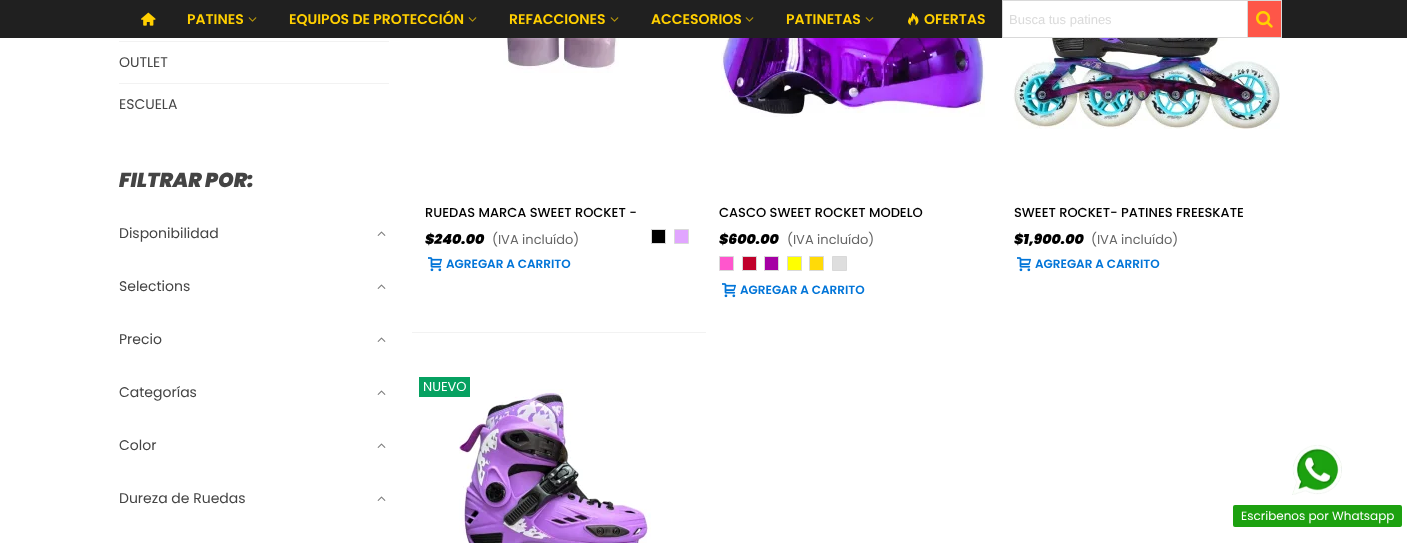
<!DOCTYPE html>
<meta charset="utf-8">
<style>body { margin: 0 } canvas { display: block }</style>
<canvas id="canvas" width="1407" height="543"></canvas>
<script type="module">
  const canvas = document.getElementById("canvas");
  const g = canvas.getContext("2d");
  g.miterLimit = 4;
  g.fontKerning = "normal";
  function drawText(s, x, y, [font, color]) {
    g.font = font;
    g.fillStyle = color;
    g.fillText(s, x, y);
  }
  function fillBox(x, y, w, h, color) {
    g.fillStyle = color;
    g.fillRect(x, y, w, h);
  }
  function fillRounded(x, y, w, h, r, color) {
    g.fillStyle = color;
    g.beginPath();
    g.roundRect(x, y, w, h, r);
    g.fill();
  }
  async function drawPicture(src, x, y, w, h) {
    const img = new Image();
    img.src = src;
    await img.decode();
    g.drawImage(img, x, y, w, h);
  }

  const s1 = ["600 14px Poppins", "#FFCF00"];
  const s2 = ["13px Liberation Sans", "#DADADA"];
  const s3 = ["14px Poppins", "#444444"];
  const s4 = ["italic 900 20px Poppins", "#444444"];
  const s5 = ["500 13px Poppins", "#000000"];
  const s6 = ["italic 900 14px Poppins", "#000000"];
  const s7 = ["13px Poppins", "#666666"];
  const s8 = ["600 12px Poppins", "#0275D8"];
  const s9 = ["13px Poppins", "#FFFFFF"];
  const s10 = ["12px Poppins", "#FFFFFF"];

  fillBox(0, 0, 1407, 543, "#FFFFFF");
  fillBox(0, 0, 1407, 38, "#202020");
  await drawPicture("pic1.png", 141, 12, 15, 14);
  drawText("PATINES", 187, 24, s1);
  await drawPicture("pic2.png", 248, 17, 9, 5);
  drawText("EQUIPOS DE PROTECCIÓN", 289, 24, s1);
  await drawPicture("pic2.png", 468, 17, 9, 5);
  drawText("REFACCIONES", 509, 24, s1);
  await drawPicture("pic2.png", 610, 17, 9, 5);
  drawText("ACCESORIOS", 651, 24, s1);
  await drawPicture("pic2.png", 745, 17, 9, 5);
  drawText("PATINETAS", 786, 24, s1);
  await drawPicture("pic2.png", 865, 17, 9, 5);
  await drawPicture("pic3.png", 908, 12, 11, 14);
  drawText("OFERTAS", 924, 24, s1);
  fillBox(1003, 1, 244, 36, "#FFFFFF");
  g.strokeStyle = "#D9D9D9";
  g.strokeRect(1002.5, 0.5, 279, 37);
  drawText("Busca tus patines", 1009, 24, s2);
  fillBox(1248, 1, 33, 36, "#FE5648");
  fillBox(1247, 1, 1, 36, "#D9D9D9");
  await drawPicture("pic4.png", 1256, 11, 17, 17);
  fillBox(119, 41, 270, 1, "#F2F2F2");
  fillBox(119, 83, 270, 1, "#F2F2F2");
  drawText("OUTLET", 119, 67, s3);
  drawText("ESCUELA", 119, 109, s3);
  drawText("FILTRAR POR:", 119, 187, s4);
  drawText("Disponibilidad", 119, 238, s3);
  await drawPicture("pic5.png", 377, 231, 9, 5);
  drawText("Selections", 119, 291, s3);
  await drawPicture("pic5.png", 377, 284, 9, 5);
  drawText("Precio", 119, 344, s3);
  await drawPicture("pic5.png", 377, 337, 9, 5);
  drawText("Categorías", 119, 397, s3);
  await drawPicture("pic5.png", 377, 390, 9, 5);
  drawText("Color", 119, 450, s3);
  await drawPicture("pic5.png", 377, 443, 9, 5);
  drawText("Dureza de Ruedas", 119, 503, s3);
  await drawPicture("pic5.png", 377, 496, 9, 5);
  await drawPicture("pic6.png", 503, 38, 116, 35);
  drawText("RUEDAS MARCA SWEET ROCKET -", 425, 217, s5);
  drawText("$240.00", 425, 244, s6);
  drawText("(IVA incluído)", 492, 244, s7);
  g.fillStyle = "#000000";
  g.beginPath();
  g.rect(651.5, 229.5, 14, 14);
  g.fill();
  g.stroke();
  g.fillStyle = "#E1A5FF";
  g.beginPath();
  g.rect(674.5, 229.5, 14, 14);
  g.fill();
  g.stroke();
  await drawPicture("pic7.png", 428, 257, 14, 15);
  drawText("AGREGAR A CARRITO", 446, 268, s8);
  await drawPicture("pic8.png", 721, 38, 264, 79);
  drawText("CASCO SWEET ROCKET MODELO", 719, 217, s5);
  drawText("$600.00", 719, 244, s6);
  drawText("(IVA incluído)", 787, 244, s7);
  g.fillStyle = "#FF56CD";
  g.beginPath();
  g.rect(719.5, 256.5, 14, 14);
  g.fill();
  g.stroke();
  g.fillStyle = "#C0002B";
  g.beginPath();
  g.rect(742.5, 256.5, 14, 14);
  g.fill();
  g.stroke();
  g.fillStyle = "#A500A4";
  g.beginPath();
  g.rect(764.5, 256.5, 14, 14);
  g.fill();
  g.stroke();
  g.fillStyle = "#FFFF00";
  g.beginPath();
  g.rect(787.5, 256.5, 14, 14);
  g.fill();
  g.stroke();
  g.fillStyle = "#FFDA08";
  g.beginPath();
  g.rect(809.5, 256.5, 14, 14);
  g.fill();
  g.stroke();
  g.fillStyle = "#DEDEDE";
  g.beginPath();
  g.rect(832.5, 256.5, 14, 14);
  g.fill();
  g.stroke();
  await drawPicture("pic7.png", 722, 283, 14, 15);
  drawText("AGREGAR A CARRITO", 740, 294, s8);
  await drawPicture("pic9.png", 1013, 38, 267, 91);
  drawText("SWEET ROCKET- PATINES FREESKATE", 1014, 217, s5);
  drawText("$1,900.00", 1014, 244, s6);
  drawText("(IVA incluído)", 1091, 244, s7);
  await drawPicture("pic7.png", 1017, 257, 14, 15);
  drawText("AGREGAR A CARRITO", 1035, 268, s8);
  fillBox(412, 332, 294, 1, "#F2F2F2");
  await drawPicture("pic10.png", 459, 389, 192, 154);
  fillBox(419, 377, 51, 20, "#06A161");
  drawText("NUEVO", 423, 391, s9);
  await drawPicture("pic11.png", 1292, 445, 50, 50);
  fillRounded(1233, 505, 169, 22, 2, "#1DA110");
  drawText("Escribenos por Whatsapp", 1241, 520, s10);
</script>
